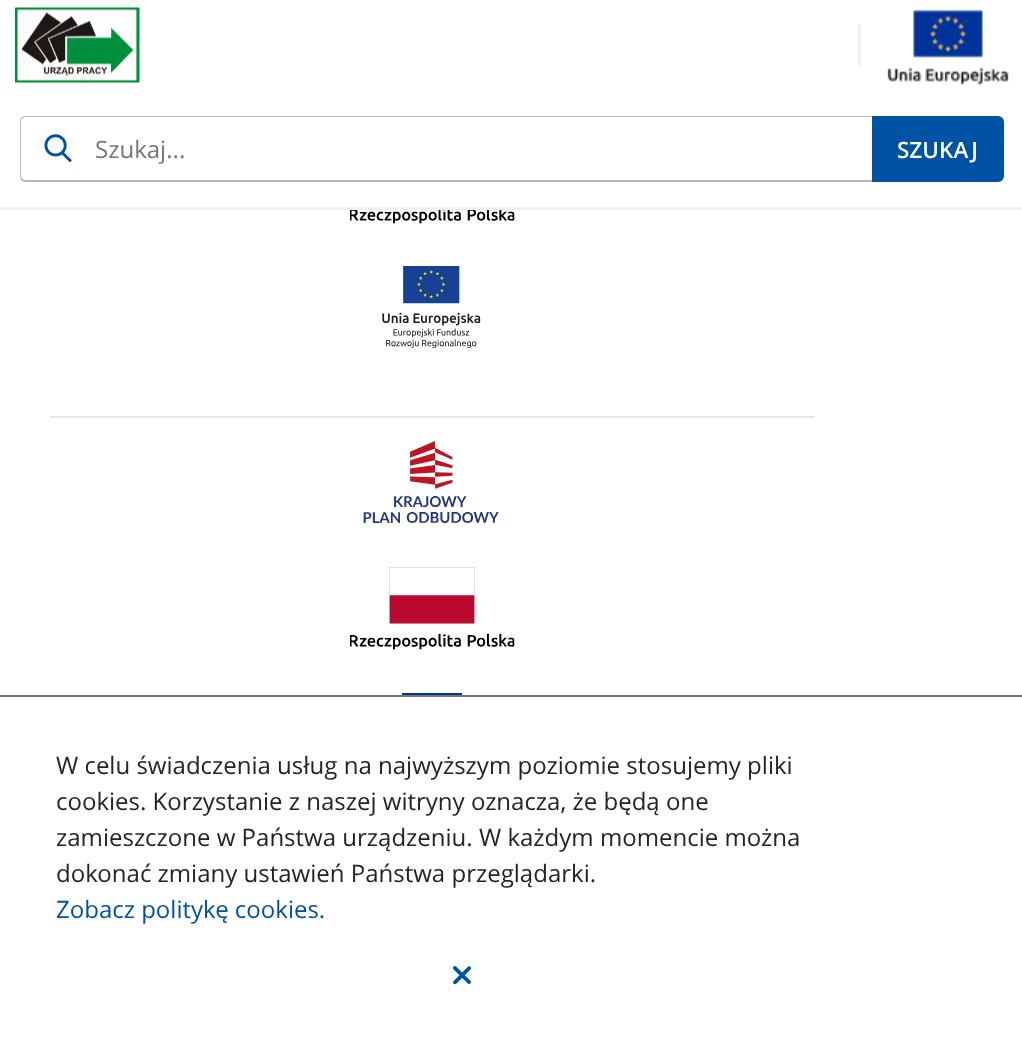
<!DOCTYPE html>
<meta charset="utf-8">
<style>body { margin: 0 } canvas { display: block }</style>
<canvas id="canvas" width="1022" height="1062"></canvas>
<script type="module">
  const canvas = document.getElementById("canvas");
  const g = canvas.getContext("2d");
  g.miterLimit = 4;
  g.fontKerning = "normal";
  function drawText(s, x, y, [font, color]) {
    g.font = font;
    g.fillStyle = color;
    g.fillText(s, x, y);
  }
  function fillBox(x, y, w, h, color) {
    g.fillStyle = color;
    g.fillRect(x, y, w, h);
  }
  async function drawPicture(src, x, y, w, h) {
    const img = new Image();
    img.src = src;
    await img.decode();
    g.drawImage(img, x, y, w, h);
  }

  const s1 = ["24px Open Sans", "#767676"];
  const s2 = ["600 22.5px Open Sans", "#FFFFFF"];
  const s3 = ["24px Open Sans", "#212529"];
  const s4 = ["24px Open Sans", "#0052A5"];

  fillBox(0, 0, 1022, 1062, "#FFFFFF");
  fillBox(0, 207, 1022, 3, "#F1F1F1");
  await drawPicture("pic1.png", 15, 7, 125, 76);
  fillBox(858, 24, 3, 42, "#F1F1F1");
  await drawPicture("pic2.png", 887, 9, 122, 76);
  await drawPicture("pic3.png", 44, 134, 28, 29);
  g.fillStyle = "#B7B7B7";
  g.beginPath();
  g.moveTo(26, 116);
  g.lineTo(872, 116);
  g.lineTo(872, 182);
  g.lineTo(26, 182);
  g.bezierCurveTo(22, 182, 20, 179, 20, 176);
  g.lineTo(20, 122);
  g.bezierCurveTo(20, 118, 22, 116, 26, 116);
  g.closePath();
  g.moveTo(26, 117);
  g.lineTo(872, 117);
  g.lineTo(872, 180);
  g.lineTo(26, 180);
  g.bezierCurveTo(23, 180, 21, 178, 21, 176);
  g.lineTo(21, 122);
  g.bezierCurveTo(21, 119, 23, 117, 26, 117);
  g.closePath();
  g.fill("evenodd");
  drawText("Szukaj...", 95, 158, s1);
  g.fillStyle = "#0052A5";
  g.beginPath();
  g.roundRect(872, 116, 132, 66, [0, 6, 6, 0]);
  g.fill();
  drawText("SZUKAJ", 897, 158, s2);
  await drawPicture("pic4.png", 350, 210, 165, 14);
  await drawPicture("pic5.png", 382, 266, 99, 82);
  fillBox(50, 416, 765, 2, "#E6E6E6");
  await drawPicture("pic6.png", 363, 441, 136, 82);
  await drawPicture("pic7.png", 350, 567, 165, 83);
  await drawPicture("pic8.png", 381, 693, 102, 2);
  fillBox(0, 695, 1022, 2, "#767676");
  drawText("W celu świadczenia usług na najwyższym poziomie stosujemy pliki", 56, 774, s3);
  drawText("cookies. Korzystanie z naszej witryny oznacza, że będą one", 56, 810, s3);
  drawText("zamieszczone w Państwa urządzeniu. W każdym momencie można", 56, 846, s3);
  drawText("dokonać zmiany ustawień Państwa przeglądarki.", 56, 882, s3);
  drawText("Zobacz politykę cookies.", 56, 918, s4);
  await drawPicture("pic9.png", 453, 966, 19, 19);
</script>
